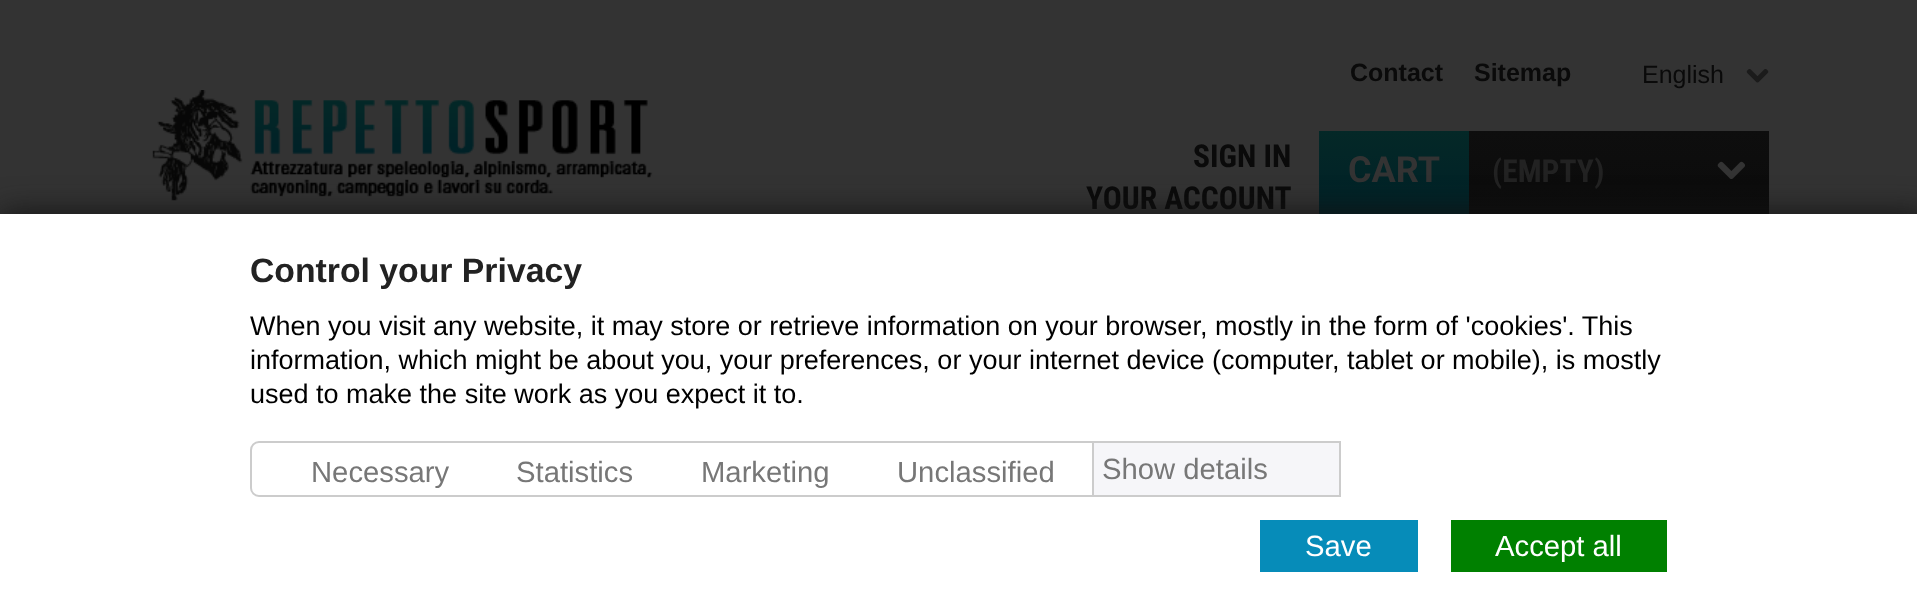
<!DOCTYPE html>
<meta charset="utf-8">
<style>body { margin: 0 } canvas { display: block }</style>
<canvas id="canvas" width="1917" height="603"></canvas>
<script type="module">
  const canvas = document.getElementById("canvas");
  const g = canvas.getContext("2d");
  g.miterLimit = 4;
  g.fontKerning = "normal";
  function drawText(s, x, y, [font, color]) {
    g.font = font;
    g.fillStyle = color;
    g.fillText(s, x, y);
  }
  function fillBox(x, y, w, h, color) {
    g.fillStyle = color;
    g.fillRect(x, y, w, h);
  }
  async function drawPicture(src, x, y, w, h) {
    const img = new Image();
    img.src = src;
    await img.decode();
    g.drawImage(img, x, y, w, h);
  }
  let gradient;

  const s1 = ["bold 25px Liberation Sans", "#0A0A0A"];
  const s2 = ["25px Liberation Sans", "#0A0A0A"];
  const s3 = ["bold 31.5px Roboto Condensed", "#0A0A0A"];
  const s4 = ["bold 36px Roboto", "#333333"];
  const s5 = ["bold 31.5px Roboto Condensed", "#222222"];
  const s6 = ["bold 33.75px Liberation Sans", "#222222"];
  const s7 = ["27px Liberation Sans", "#000000"];
  const s8 = ["29.25px Liberation Sans", "#777777"];
  const s9 = ["29.25px Liberation Sans", "#FFFFFF"];

  fillBox(0, 0, 1917, 603, "#333333");
  drawText("Contact", 1350, 81, s1);
  drawText("Sitemap", 1474, 81, s1);
  drawText("English", 1642, 83, s2);
  await drawPicture("pic1.png", 1746, 69, 23, 14);
  await drawPicture("pic2.png", 152, 90, 501, 111);
  drawText("SIGN IN", 1193, 167, s3);
  drawText("YOUR ACCOUNT", 1086, 209, s3);
  gradient = g.createLinearGradient(1544, 130, 1544, 214);
  gradient.addColorStop(0, "#0E0E0E");
  gradient.addColorStop(1, "#0B0B0B");
  g.fillStyle = gradient;
  g.fillRect(1469, 131, 300, 83);
  gradient = g.createLinearGradient(1394, 131, 1394, 214);
  gradient.addColorStop(0, "#042827");
  gradient.addColorStop(1, "#002127");
  g.fillStyle = gradient;
  g.fillRect(1319, 131, 150, 83);
  drawText("CART", 1348, 182, s4);
  drawText("(EMPTY)", 1492, 182, s5);
  await drawPicture("pic3.png", 1717, 161, 29, 19);
  g.fillStyle = "#121212";
  g.filter = "blur(16px)";
  g.beginPath();
  g.rect(0, 214, 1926, 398);
  g.fill();
  g.filter = "none";
  fillBox(0, 214, 1917, 389, "#FFFFFF");
  drawText("Control your Privacy", 250, 282, s6);
  drawText("When you visit any website, it may store or retrieve information on your browser, mostly in the form of 'cookies'. This", 250, 335, s7);
  drawText("information, which might be about you, your preferences, or your internet device (computer, tablet or mobile), is mostly", 250, 369, s7);
  drawText("used to make the site work as you expect it to.", 250, 403, s7);
  g.beginPath();
  g.roundRect(251, 442, 842, 54, [8, 0, 0, 8]);
  g.strokeStyle = "#CCCCCC";
  g.lineWidth = 2;
  g.stroke();
  drawText("Necessary", 311, 482, s8);
  drawText("Statistics", 516, 482, s8);
  drawText("Marketing", 701, 482, s8);
  drawText("Unclassified", 897, 482, s8);
  fillBox(1094, 443, 245, 52, "#F6F6F9");
  fillBox(1094, 441, 247, 2, "#CCCCCC");
  fillBox(1339, 441, 2, 56, "#CCCCCC");
  fillBox(1094, 495, 247, 2, "#CCCCCC");
  drawText("Show details", 1102, 479, s8);
  fillBox(1260, 520, 158, 52, "#068CB9");
  drawText("Save", 1305, 556, s9);
  fillBox(1451, 520, 216, 52, "#008000");
  drawText("Accept all", 1495, 556, s9);
</script>
